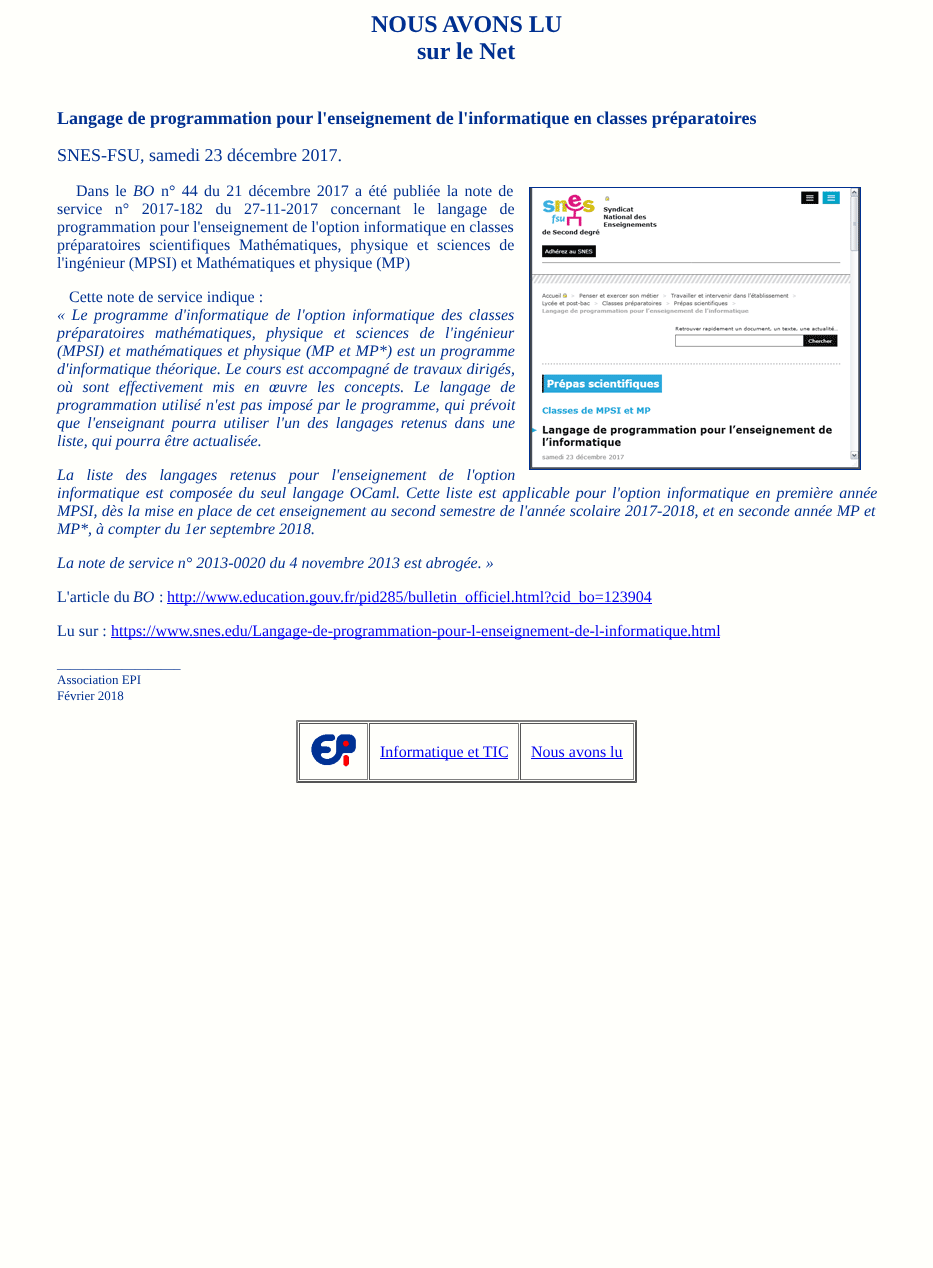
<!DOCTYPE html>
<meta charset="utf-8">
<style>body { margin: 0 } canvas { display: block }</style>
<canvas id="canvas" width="933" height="1268"></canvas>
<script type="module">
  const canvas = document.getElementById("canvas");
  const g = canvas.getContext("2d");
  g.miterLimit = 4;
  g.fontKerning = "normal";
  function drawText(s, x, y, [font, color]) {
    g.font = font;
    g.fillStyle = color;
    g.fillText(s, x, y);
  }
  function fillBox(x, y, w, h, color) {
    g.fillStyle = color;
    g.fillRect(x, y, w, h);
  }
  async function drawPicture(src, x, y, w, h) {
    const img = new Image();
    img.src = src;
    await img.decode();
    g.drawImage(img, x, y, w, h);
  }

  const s1 = ["bold 24px Liberation Serif", "#003090"];
  const s2 = ["bold 18px Liberation Serif", "#003090"];
  const s3 = ["18px Liberation Serif", "#003090"];
  const s4 = ["16px Liberation Serif", "#003090"];
  const s5 = ["italic 16px Liberation Serif", "#003090"];
  const s6 = ["16px Liberation Serif", "#0000EE"];
  const s7 = ["13px Liberation Serif", "#003090"];

  fillBox(0, 0, 933, 1268, "#FFFFFB");
  drawText("NOUS AVONS LU", 371, 32, s1);
  drawText("sur le Net", 417, 59, s1);
  drawText("Langage de programmation pour l'enseignement de l'informatique en classes préparatoires", 57, 124, s2);
  drawText("SNES-FSU, samedi 23 décembre 2017.", 57, 161, s3);
  g.wordSpacing = "2.25px";
  drawText("Dans le", 76, 196, s4);
  g.wordSpacing = "0px";
  drawText("BO", 133, 196, s5);
  g.wordSpacing = "2.25px";
  drawText("n° 44 du 21 décembre 2017 a été publiée la note de", 161, 196, s4);
  g.strokeStyle = "#003090";
  g.strokeRect(529.5, 187.5, 331, 282);
  await drawPicture("pic1.png", 530, 188, 330, 281);
  g.wordSpacing = "8.5px";
  drawText("service n° 2017-182 du 27-11-2017 concernant le langage de", 57, 214, s4);
  g.wordSpacing = "0px";
  drawText("programmation pour l'enseignement de l'option informatique en classes", 57, 232, s4);
  g.wordSpacing = "4.75px";
  drawText("préparatoires scientifiques Mathématiques, physique et sciences de", 57, 250, s4);
  g.wordSpacing = "0px";
  drawText("l'ingénieur (MPSI) et Mathématiques et physique (MP)", 57, 268, s4);
  drawText("Cette note de service indique :", 69, 302, s4);
  g.wordSpacing = "2.5px";
  drawText("« Le programme d'informatique de l'option informatique des classes", 57, 320, s5);
  g.wordSpacing = "6.5px";
  drawText("préparatoires mathématiques, physique et sciences de l'ingénieur", 57, 338, s5);
  g.wordSpacing = "1px";
  drawText("(MPSI) et mathématiques et physique (MP et MP*) est un programme", 57, 356, s5);
  g.wordSpacing = "0.5px";
  drawText("d'informatique théorique. Le cours est accompagné de travaux dirigés,", 57, 374, s5);
  g.wordSpacing = "5.5px";
  drawText("où sont effectivement mis en œuvre les concepts. Le langage de", 57, 392, s5);
  g.wordSpacing = "1px";
  drawText("programmation utilisé n'est pas imposé par le programme, qui prévoit", 57, 410, s5);
  g.wordSpacing = "3.25px";
  drawText("que l'enseignant pourra utiliser l'un des langages retenus dans une", 57, 428, s5);
  g.wordSpacing = "0px";
  drawText("liste, qui pourra être actualisée.", 57, 446, s5);
  g.wordSpacing = "8.5px";
  drawText("La liste des langages retenus pour l'enseignement de l'option", 57, 480, s5);
  g.wordSpacing = "2px";
  drawText("informatique est composée du seul langage OCaml. Cette liste est applicable pour l'option informatique en première année", 57, 498, s5);
  g.wordSpacing = "0.4px";
  drawText("MPSI, dès la mise en place de cet enseignement au second semestre de l'année scolaire 2017-2018, et en seconde année MP et", 57, 516, s5);
  g.wordSpacing = "0px";
  drawText("MP*, à compter du 1er septembre 2018.", 57, 534, s5);
  drawText("La note de service n° 2013-0020 du 4 novembre 2013 est abrogée. »", 57, 568, s5);
  drawText("L'article du", 57, 602, s4);
  drawText("BO", 133, 602, s5);
  drawText(":", 159, 602, s4);
  fillBox(167, 603, 485, 1, "#0000EE");
  drawText("http://www.education.gouv.fr/pid285/bulletin_officiel.html?cid_bo=123904", 167, 602, s6);
  drawText("Lu sur :", 57, 636, s4);
  fillBox(111, 637, 609, 1, "#0000EE");
  drawText("https://www.snes.edu/Langage-de-programmation-pour-l-enseignement-de-l-informatique.html", 111, 636, s6);
  drawText("___________________", 57, 668, s7);
  drawText("Association EPI", 57, 684, s7);
  drawText("Février 2018", 57, 700, s7);
  g.fillStyle = "#808080";
  g.beginPath();
  g.moveTo(296, 720);
  g.lineTo(637, 720);
  g.lineTo(635, 722);
  g.lineTo(298, 722);
  g.closePath();
  g.fill();
  g.fillStyle = "#555555";
  g.beginPath();
  g.moveTo(637, 720);
  g.lineTo(637, 783);
  g.lineTo(635, 781);
  g.lineTo(635, 722);
  g.closePath();
  g.fill();
  g.beginPath();
  g.moveTo(637, 783);
  g.lineTo(296, 783);
  g.lineTo(298, 781);
  g.lineTo(635, 781);
  g.closePath();
  g.fill();
  g.fillStyle = "#808080";
  g.beginPath();
  g.moveTo(296, 783);
  g.lineTo(296, 720);
  g.lineTo(298, 722);
  g.lineTo(298, 781);
  g.closePath();
  g.fill();
  fillBox(299, 723, 69, 1, "#555555");
  fillBox(367, 723, 1, 57, "#808080");
  fillBox(299, 779, 69, 1, "#808080");
  fillBox(299, 723, 1, 57, "#555555");
  await drawPicture("pic2.png", 311, 734, 45, 33);
  fillBox(369, 723, 150, 1, "#555555");
  fillBox(518, 723, 1, 57, "#808080");
  fillBox(369, 779, 150, 1, "#808080");
  fillBox(369, 723, 1, 57, "#555555");
  fillBox(380, 758, 128, 1, "#0000EE");
  drawText("Informatique et TIC", 380, 757, s6);
  fillBox(520, 723, 114, 1, "#555555");
  fillBox(633, 723, 1, 57, "#808080");
  fillBox(520, 779, 114, 1, "#808080");
  fillBox(520, 723, 1, 57, "#555555");
  drawText("Nous avons lu", 531, 757, s6);
  fillBox(531, 758, 92, 1, "#0000EE");
</script>
